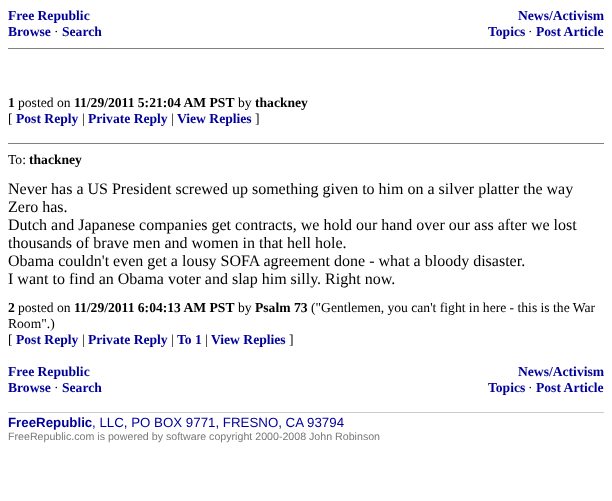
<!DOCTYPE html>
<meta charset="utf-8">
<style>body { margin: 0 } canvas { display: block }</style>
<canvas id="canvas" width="612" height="501"></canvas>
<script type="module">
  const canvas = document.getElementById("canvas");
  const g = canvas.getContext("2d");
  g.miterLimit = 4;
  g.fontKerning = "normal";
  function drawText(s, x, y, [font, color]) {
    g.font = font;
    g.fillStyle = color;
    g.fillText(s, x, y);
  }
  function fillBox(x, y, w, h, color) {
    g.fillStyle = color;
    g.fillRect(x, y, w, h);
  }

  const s1 = ["bold 13.6px Liberation Serif", "#000099"];
  const s2 = ["13.6px Liberation Serif", "#000000"];
  const s3 = ["bold 13.6px Liberation Serif", "#000000"];
  const s4 = ["16px Liberation Serif", "#000000"];
  const s5 = ["bold 13.3px Liberation Sans", "#000099"];
  const s6 = ["13.3px Liberation Sans", "#000099"];
  const s7 = ["10.65px Liberation Sans", "#777777"];

  fillBox(0, 0, 612, 501, "#FFFFFF");
  drawText("Free Republic", 8, 20, s1);
  drawText("Browse", 8, 36, s1);
  drawText("·", 54, 36, s2);
  drawText("Search", 62, 36, s1);
  drawText("News/Activism", 518, 20, s1);
  drawText("Topics", 488, 36, s1);
  drawText("·", 528, 36, s2);
  drawText("Post Article", 536, 36, s1);
  fillBox(8, 48, 596, 1, "#808080");
  drawText("1", 8, 107, s3);
  drawText("posted on", 18, 107, s2);
  drawText("11/29/2011 5:21:04 AM PST", 74, 107, s3);
  drawText("by", 238, 107, s2);
  drawText("thackney", 255, 107, s3);
  drawText("[", 8, 123, s2);
  drawText("Post Reply", 16, 123, s1);
  drawText("|", 82, 123, s2);
  drawText("Private Reply", 88, 123, s1);
  drawText("|", 171, 123, s2);
  drawText("View Replies", 177, 123, s1);
  drawText("]", 255, 123, s2);
  fillBox(8, 143, 596, 1, "#808080");
  drawText("To:", 8, 164, s2);
  drawText("thackney", 29, 164, s3);
  drawText("Never has a US President screwed up something given to him on a silver platter the way", 8, 194, s4);
  drawText("Zero has.", 8, 212, s4);
  drawText("Dutch and Japanese companies get contracts, we hold our hand over our ass after we lost", 8, 230, s4);
  drawText("thousands of brave men and women in that hell hole.", 8, 248, s4);
  drawText("Obama couldn't even get a lousy SOFA agreement done - what a bloody disaster.", 8, 266, s4);
  drawText("I want to find an Obama voter and slap him silly. Right now.", 8, 284, s4);
  drawText("2", 8, 312, s3);
  drawText("posted on", 18, 312, s2);
  drawText("11/29/2011 6:04:13 AM PST", 74, 312, s3);
  drawText("by", 238, 312, s2);
  drawText("Psalm 73", 255, 312, s3);
  drawText("(\"Gentlemen, you can't fight in here - this is the War", 311, 312, s2);
  drawText("Room\".)", 8, 328, s2);
  drawText("[", 8, 344, s2);
  drawText("Post Reply", 16, 344, s1);
  drawText("|", 82, 344, s2);
  drawText("Private Reply", 88, 344, s1);
  drawText("|", 171, 344, s2);
  drawText("To 1", 177, 344, s1);
  drawText("|", 205, 344, s2);
  drawText("View Replies", 211, 344, s1);
  drawText("]", 289, 344, s2);
  drawText("Free Republic", 8, 376, s1);
  drawText("Browse", 8, 392, s1);
  drawText("·", 54, 392, s2);
  drawText("Search", 62, 392, s1);
  drawText("News/Activism", 518, 376, s1);
  drawText("Topics", 488, 392, s1);
  drawText("·", 528, 392, s2);
  drawText("Post Article", 536, 392, s1);
  fillBox(8, 412, 596, 1, "#CCCCCC");
  drawText("FreeRepublic", 8, 427, s5);
  drawText(", LLC, PO BOX 9771, FRESNO, CA 93794", 92, 427, s6);
  drawText("FreeRepublic.com is powered by software copyright 2000-2008 John Robinson", 8, 440, s7);
</script>
